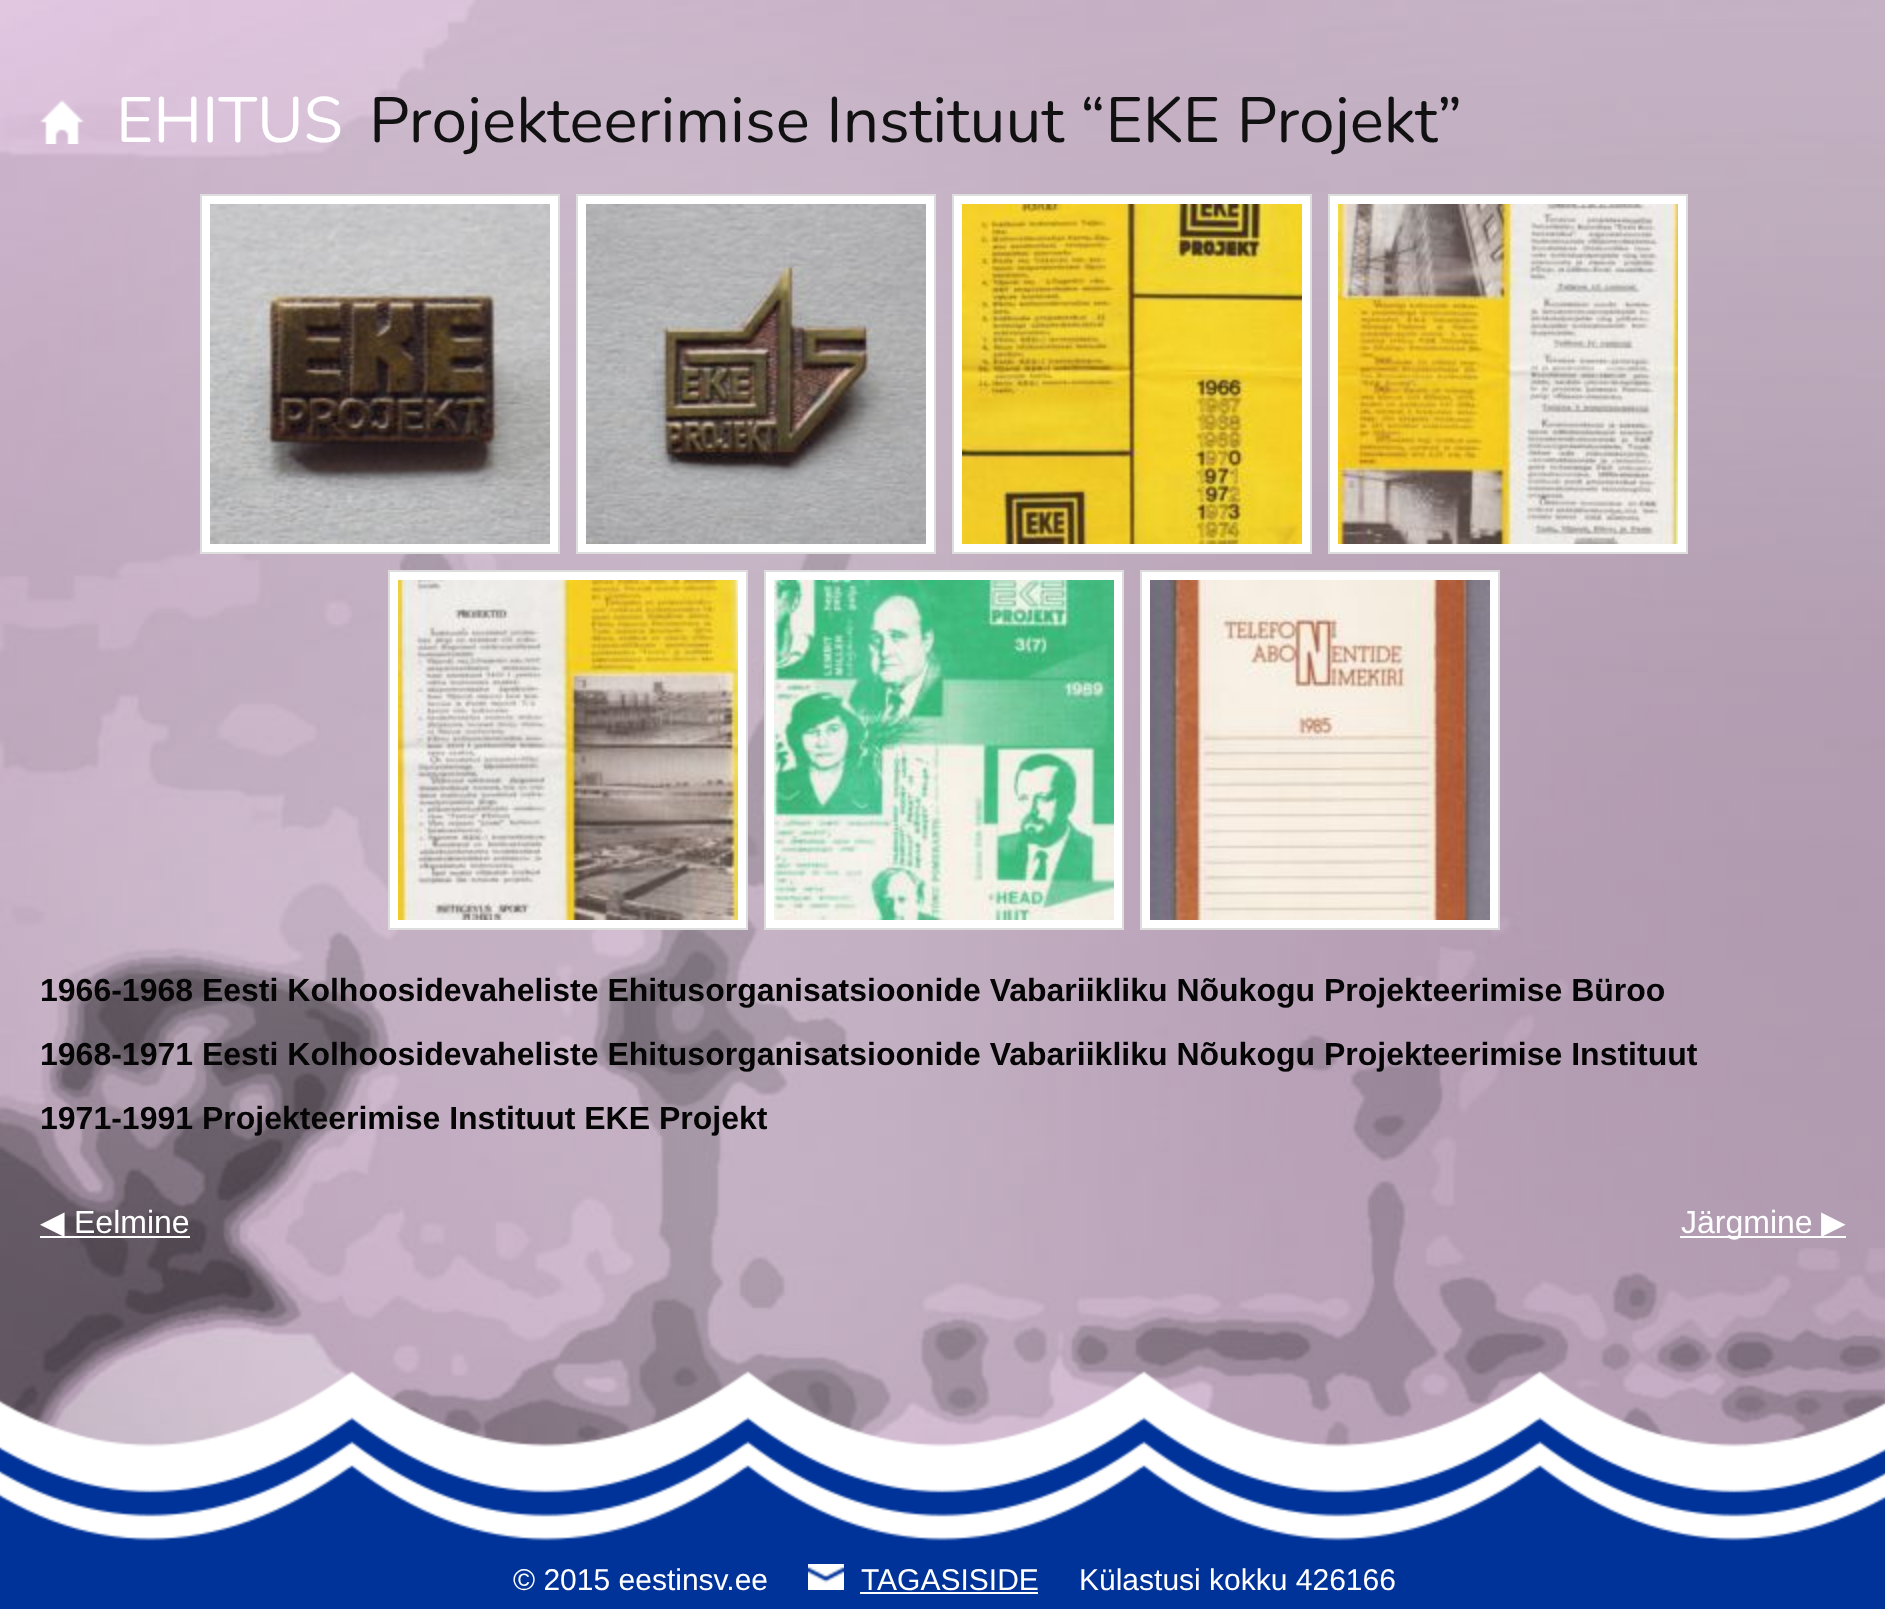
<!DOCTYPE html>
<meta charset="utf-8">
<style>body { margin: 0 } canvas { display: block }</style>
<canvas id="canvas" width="1885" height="1609"></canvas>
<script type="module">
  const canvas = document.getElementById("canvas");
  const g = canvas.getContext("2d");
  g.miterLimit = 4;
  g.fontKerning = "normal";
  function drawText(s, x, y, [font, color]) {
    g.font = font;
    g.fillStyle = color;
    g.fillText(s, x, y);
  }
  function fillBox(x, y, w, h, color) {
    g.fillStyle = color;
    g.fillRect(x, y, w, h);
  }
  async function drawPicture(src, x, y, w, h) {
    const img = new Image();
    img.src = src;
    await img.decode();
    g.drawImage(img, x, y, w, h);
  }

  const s1 = ["200 64px Nunito", "#FFFFFF"];
  const s2 = ["200 64px Nunito", "#111111"];
  const s3 = ["bold 32px Liberation Sans", "#050505"];
  const s4 = ["32px DejaVu Sans", "#FFFFFF"];
  const s5 = ["32px Liberation Sans", "#FFFFFF"];
  const s6 = ["30px Liberation Sans", "#FFFFFF"];

  fillBox(0, 0, 1885, 1609, "#FFFFFF");
  await drawPicture("pic1.png", 0, 0, 1885, 1447);
  await drawPicture("pic2.png", 40, 100, 44, 44);
  drawText("EHITUS", 116, 142, s1);
  drawText("Projekteerimise Instituut “EKE Projekt”", 369, 142, s2);
  g.strokeStyle = "#DDDDDD";
  g.lineWidth = 2;
  g.strokeRect(201, 195, 358, 358);
  fillBox(202, 196, 356, 356, "#FFFFFF");
  await drawPicture("pic3.png", 210, 204, 340, 340);
  g.strokeRect(577, 195, 358, 358);
  fillBox(578, 196, 356, 356, "#FFFFFF");
  await drawPicture("pic4.png", 586, 204, 340, 340);
  g.strokeRect(953, 195, 358, 358);
  fillBox(954, 196, 356, 356, "#FFFFFF");
  await drawPicture("pic5.png", 962, 204, 340, 340);
  g.strokeRect(1329, 195, 358, 358);
  fillBox(1330, 196, 356, 356, "#FFFFFF");
  await drawPicture("pic6.png", 1338, 204, 340, 340);
  g.strokeRect(389, 571, 358, 358);
  fillBox(390, 572, 356, 356, "#FFFFFF");
  await drawPicture("pic7.png", 398, 580, 340, 340);
  g.strokeRect(765, 571, 358, 358);
  fillBox(766, 572, 356, 356, "#FFFFFF");
  await drawPicture("pic8.png", 774, 580, 340, 340);
  g.strokeRect(1141, 571, 358, 358);
  fillBox(1142, 572, 356, 356, "#FFFFFF");
  await drawPicture("pic9.png", 1150, 580, 340, 340);
  drawText("1966-1968 Eesti Kolhoosidevaheliste Ehitusorganisatsioonide Vabariikliku Nõukogu Projekteerimise Büroo", 40, 1001, s3);
  drawText("1968-1971 Eesti Kolhoosidevaheliste Ehitusorganisatsioonide Vabariikliku Nõukogu Projekteerimise Instituut", 40, 1065, s3);
  drawText("1971-1991 Projekteerimise Instituut EKE Projekt", 40, 1129, s3);
  fillBox(40, 1236, 150, 2, "#FFFFFF");
  drawText("◀", 40, 1233, s4);
  drawText("Eelmine", 74, 1233, s5);
  fillBox(1680, 1236, 166, 2, "#FFFFFF");
  drawText("Järgmine", 1681, 1233, s5);
  drawText("▶", 1821, 1233, s4);
  await drawPicture("pic10.png", 0, 1371, 1885, 238);
  drawText("© 2015 eestinsv.ee", 513, 1590, s6);
  await drawPicture("pic11.png", 808, 1564, 36, 26);
  drawText("TAGASISIDE", 861, 1590, s6);
  fillBox(860, 1592, 178, 2, "#FFFFFF");
  drawText("Külastusi kokku 426166", 1079, 1590, s6);
</script>
